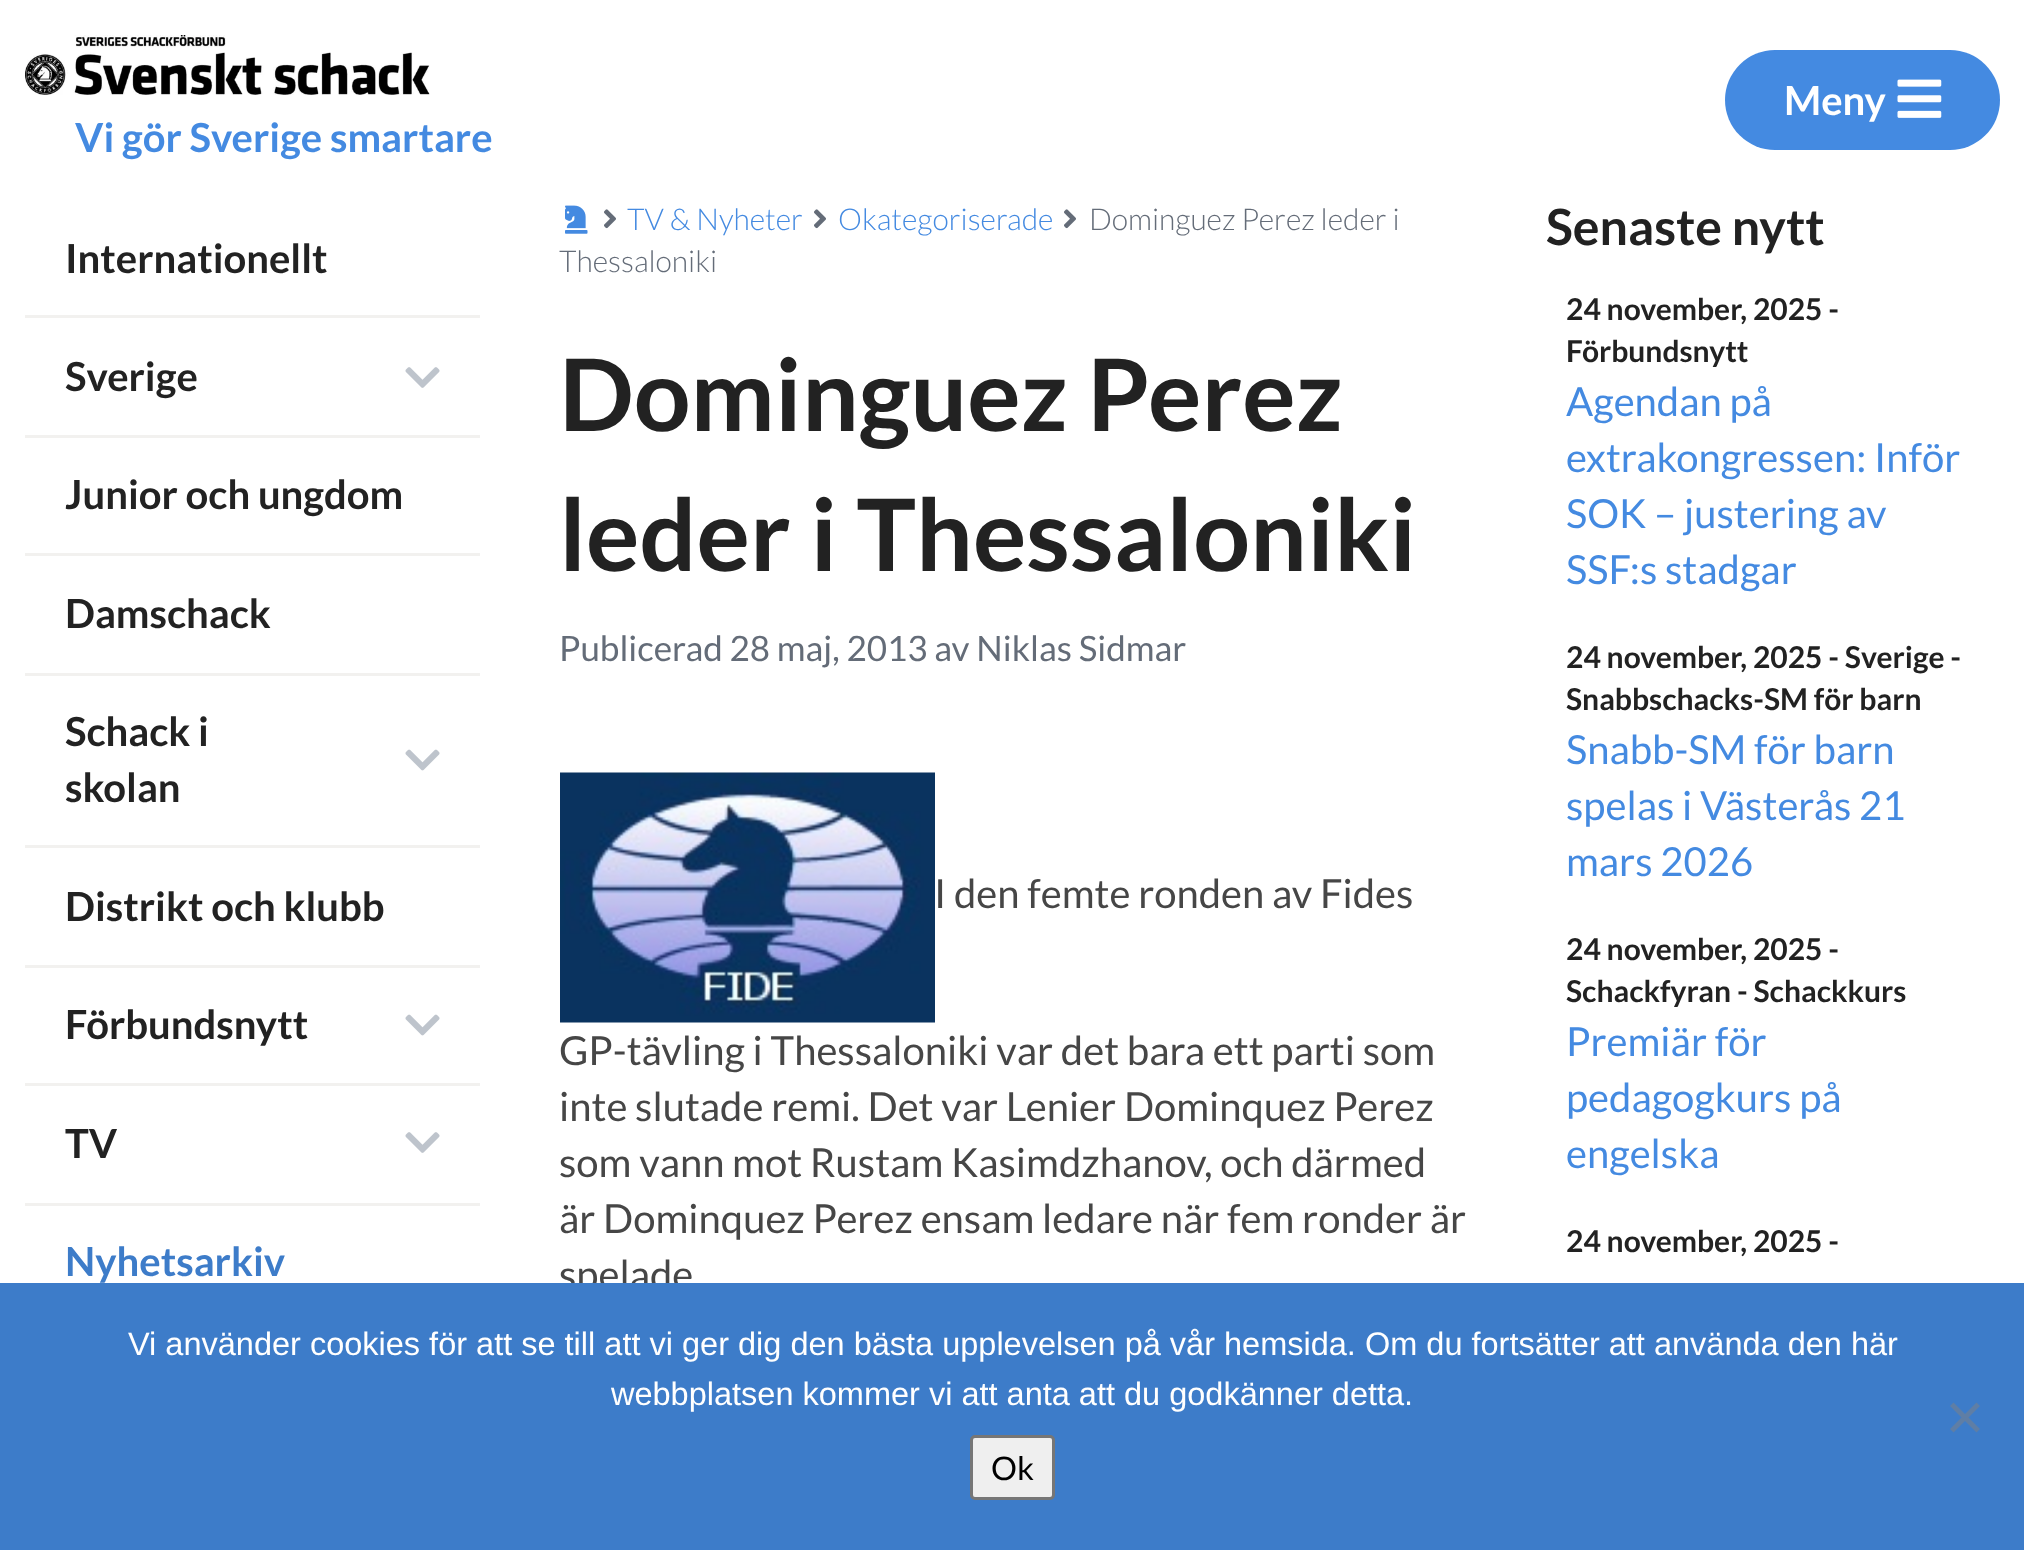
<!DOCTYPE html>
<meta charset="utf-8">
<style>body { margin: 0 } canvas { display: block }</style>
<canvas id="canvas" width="2024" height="1550"></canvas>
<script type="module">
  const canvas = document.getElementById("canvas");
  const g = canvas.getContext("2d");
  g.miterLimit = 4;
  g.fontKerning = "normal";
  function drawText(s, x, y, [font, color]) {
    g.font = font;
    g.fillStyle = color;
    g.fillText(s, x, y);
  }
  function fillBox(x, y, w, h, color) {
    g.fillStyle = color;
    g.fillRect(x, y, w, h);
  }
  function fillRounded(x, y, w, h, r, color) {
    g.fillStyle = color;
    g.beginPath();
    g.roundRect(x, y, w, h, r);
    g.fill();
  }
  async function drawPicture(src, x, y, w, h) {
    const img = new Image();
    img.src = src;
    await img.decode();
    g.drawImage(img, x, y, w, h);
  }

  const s1 = ["bold 40px Lato", "#FFFFFF"];
  const s2 = ["bold 40px Lato", "#448AE1"];
  const s3 = ["bold 40px Lato", "#222222"];
  const s4 = ["bold 40px Lato", "#3D7CC9"];
  const s5 = ["300 30px Lato", "#448AE1"];
  const s6 = ["300 30px Lato", "#646C78"];
  const s7 = ["bold 100px Lato", "#222222"];
  const s8 = ["35px Lato", "#646C78"];
  const s9 = ["40px Lato", "#464646"];
  const s10 = ["bold 50px Lato", "#222222"];
  const s11 = ["bold 30px Lato", "#222222"];
  const s12 = ["40px Lato", "#448AE1"];
  const s13 = ["32.5px Liberation Sans", "#FFFFFF"];
  const s14 = ["32.5px Lato", "#000000"];

  fillBox(0, 0, 2024, 1550, "#FFFFFF");
  fillRounded(1725, 50, 275, 100, 50, "#448AE1");
  drawText("Meny", 1784, 115, s1);
  await drawPicture("pic1.png", 1897, 79, 45, 39);
  await drawPicture("pic2.png", 25, 35, 405, 60);
  drawText("Vi gör Sverige smartare", 75, 152, s2);
  fillBox(25, 315, 455, 3, "#F2F1EF");
  drawText("Internationellt", 65, 273, s3);
  fillBox(25, 435, 455, 3, "#F2F1EF");
  drawText("Sverige", 65, 391, s3);
  await drawPicture("pic3.png", 405, 367, 35, 21);
  fillBox(25, 553, 455, 3, "#F2F1EF");
  drawText("Junior och ungdom", 65, 509, s3);
  fillBox(25, 673, 455, 3, "#F2F1EF");
  drawText("Damschack", 65, 628, s3);
  fillBox(25, 845, 455, 3, "#F2F1EF");
  drawText("Schack i", 65, 746, s3);
  drawText("skolan", 65, 802, s3);
  await drawPicture("pic4.png", 405, 749, 35, 22);
  fillBox(25, 965, 455, 3, "#F2F1EF");
  drawText("Distrikt och klubb", 65, 921, s3);
  fillBox(25, 1083, 455, 3, "#F2F1EF");
  drawText("Förbundsnytt", 65, 1039, s3);
  await drawPicture("pic4.png", 405, 1014, 35, 22);
  fillBox(25, 1203, 455, 3, "#F2F1EF");
  drawText("TV", 65, 1158, s3);
  await drawPicture("pic3.png", 405, 1132, 35, 21);
  drawText("Nyhetsarkiv", 65, 1276, s4);
  await drawPicture("pic5.png", 565, 205, 23, 29);
  await drawPicture("pic6.png", 604, 209, 12, 20);
  drawText("TV & Nyheter", 627, 230, s5);
  await drawPicture("pic6.png", 814, 209, 12, 20);
  drawText("Okategoriserade", 838, 230, s5);
  await drawPicture("pic6.png", 1064, 209, 12, 20);
  drawText("Dominguez Perez leder i", 1089, 230, s6);
  drawText("Thessaloniki", 559, 272, s6);
  drawText("Dominguez Perez", 559, 431, s7);
  drawText("leder i Thessaloniki", 559, 571, s7);
  drawText("Publicerad 28 maj, 2013 av Niklas Sidmar", 559, 661, s8);
  await drawPicture("pic7.png", 560, 772, 375, 251);
  drawText("I den femte ronden av Fides", 934, 908, s9);
  drawText("GP-tävling i Thessaloniki var det bara ett parti som", 559, 1065, s9);
  drawText("inte slutade remi. Det var Lenier Dominquez Perez", 559, 1121, s9);
  drawText("som vann mot Rustam Kasimdzhanov, och därmed", 559, 1177, s9);
  drawText("är Dominquez Perez ensam ledare när fem ronder är", 559, 1233, s9);
  drawText("spelade", 559, 1289, s9);
  drawText("Senaste nytt", 1546, 245, s10);
  drawText("24 november, 2025 -", 1566, 320, s11);
  drawText("Förbundsnytt", 1566, 362, s11);
  drawText("Agendan på", 1566, 416, s12);
  drawText("extrakongressen: Inför", 1566, 472, s12);
  drawText("SOK – justering av", 1566, 528, s12);
  drawText("SSF:s stadgar", 1566, 584, s12);
  drawText("24 november, 2025 - Sverige -", 1566, 668, s11);
  drawText("Snabbschacks-SM för barn", 1566, 710, s11);
  drawText("Snabb-SM för barn", 1566, 764, s12);
  drawText("spelas i Västerås 21", 1566, 820, s12);
  drawText("mars 2026", 1566, 876, s12);
  drawText("24 november, 2025 -", 1566, 960, s11);
  drawText("Schackfyran - Schackkurs", 1566, 1002, s11);
  drawText("Premiär för", 1566, 1056, s12);
  drawText("pedagogkurs på", 1566, 1112, s12);
  drawText("engelska", 1566, 1168, s12);
  drawText("24 november, 2025 -", 1566, 1252, s11);
  fillBox(0, 1283, 2024, 267, "#3D7CC9");
  drawText("Vi använder cookies för att se till att vi ger dig den bästa upplevelsen på vår hemsida. Om du fortsätter att använda den här", 128, 1355, s13);
  drawText("webbplatsen kommer vi att anta att du godkänner detta.", 611, 1405, s13);
  g.fillStyle = "#5F7EA5";
  g.beginPath();
  g.moveTo(1976.5, 1402.5);
  g.lineTo(1980, 1406);
  g.lineTo(1953.5, 1432.5);
  g.lineTo(1950, 1429);
  g.closePath();
  g.fill();
  g.beginPath();
  g.moveTo(1950, 1406);
  g.lineTo(1953.5, 1402.5);
  g.lineTo(1980, 1429);
  g.lineTo(1976.5, 1432.5);
  g.closePath();
  g.fill();
  g.fillStyle = "#EFEFEF";
  g.beginPath();
  g.roundRect(971.5, 1436.5, 82, 62, 3.5);
  g.fill();
  g.strokeStyle = "#767676";
  g.lineWidth = 3;
  g.stroke();
  drawText("Ok", 991, 1480, s14);
</script>
